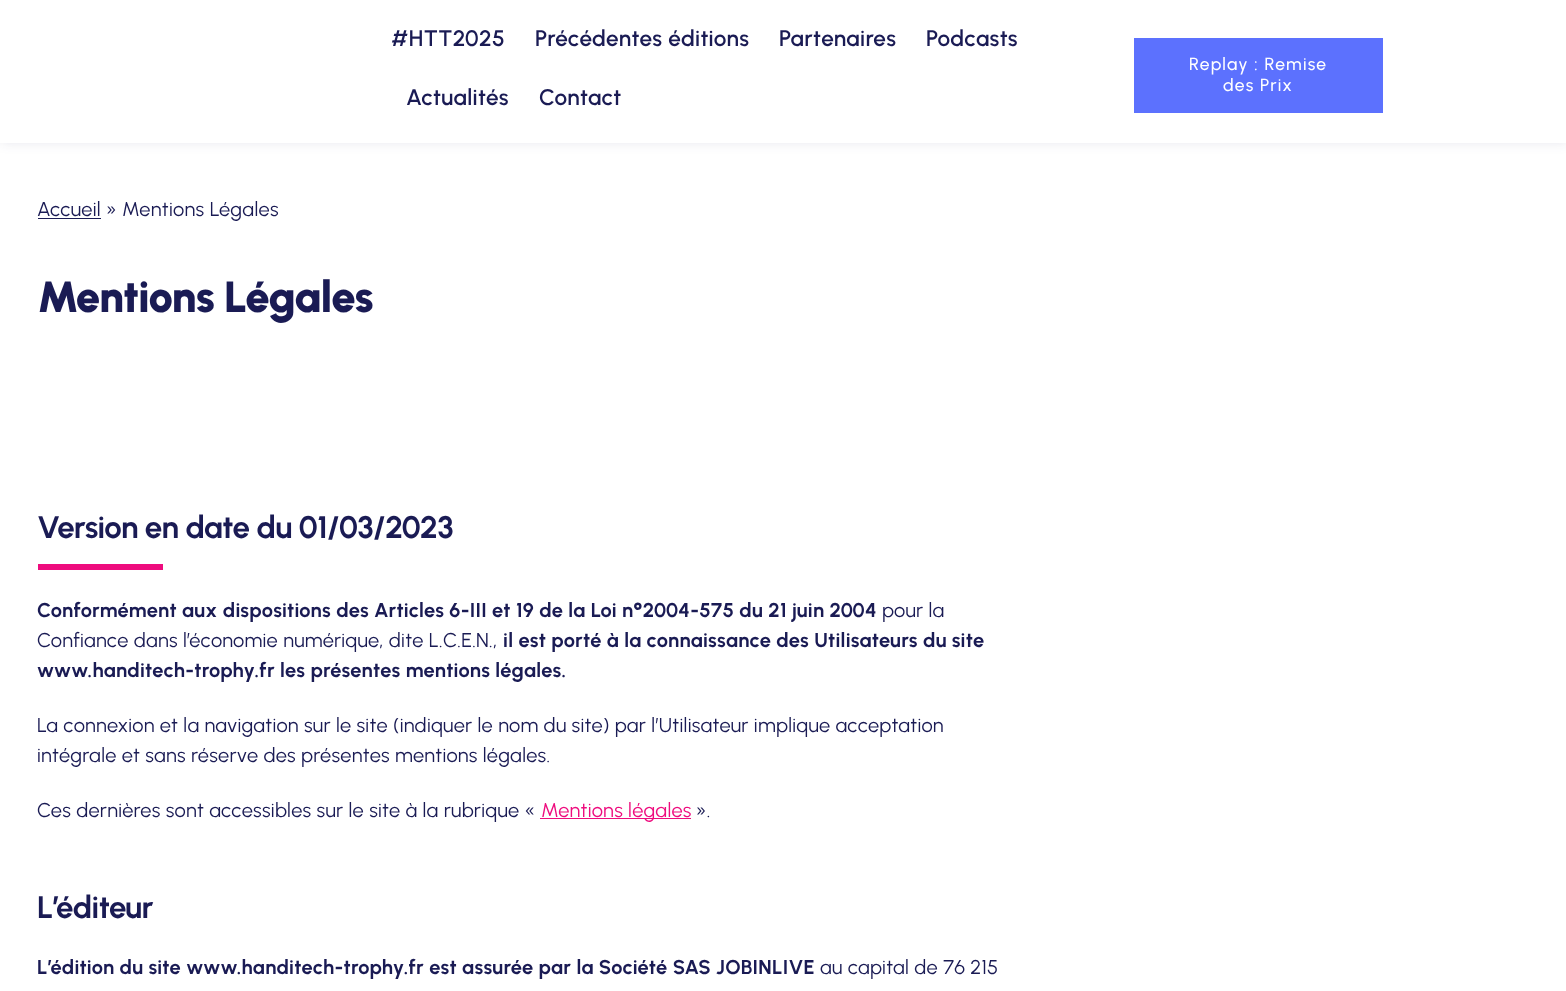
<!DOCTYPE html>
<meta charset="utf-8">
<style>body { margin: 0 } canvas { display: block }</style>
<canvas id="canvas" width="1566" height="991"></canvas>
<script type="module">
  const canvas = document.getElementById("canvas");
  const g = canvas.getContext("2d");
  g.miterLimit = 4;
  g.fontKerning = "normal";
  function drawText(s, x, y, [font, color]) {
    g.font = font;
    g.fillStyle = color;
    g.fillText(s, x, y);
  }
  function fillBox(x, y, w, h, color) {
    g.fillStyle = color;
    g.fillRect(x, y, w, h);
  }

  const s1 = ["600 22.5px Urbanist", "#1A1B54"];
  const s2 = ["500 17.5px Urbanist", "#FFFFFF"];
  const s3 = ["20px Urbanist", "#1A1B54"];
  const s4 = ["900 43.75px Urbanist", "#1A1B54"];
  const s5 = ["bold 31.25px Urbanist", "#1A1B54"];
  const s6 = ["bold 20px Urbanist", "#1A1B54"];
  const s7 = ["20px Urbanist", "#EE0C7E"];

  fillBox(0, 0, 1566, 991, "#FFFFFF");
  g.fillStyle = "rgba(26, 27, 84, 0.1)";
  g.filter = "blur(6px)";
  g.beginPath();
  g.rect(1, 0, 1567, 143);
  g.fill();
  g.filter = "none";
  fillBox(0, 0, 1566, 143, "#FFFFFF");
  g.letterSpacing = "0.35px";
  drawText("#HTT2025", 391, 46, s1);
  drawText("Précédentes éditions", 535, 46, s1);
  drawText("Partenaires", 779, 46, s1);
  drawText("Podcasts", 926, 46, s1);
  drawText("Actualités", 406, 105, s1);
  drawText("Contact", 539, 105, s1);
  fillBox(1134, 38, 249, 75, "#5C71FE");
  g.letterSpacing = "1.25px";
  drawText("Replay : Remise", 1189, 70, s2);
  drawText("des Prix", 1223, 91, s2);
  fillBox(38, 218, 63, 1, "#1A1B54");
  g.letterSpacing = "0.35px";
  drawText("Accueil » Mentions Légales", 37, 216, s3);
  g.letterSpacing = "-0.7px";
  drawText("Mentions Légales", 37, 312, s4);
  g.letterSpacing = "-0.5px";
  drawText("Version en date du 01/03/2023", 37, 538, s5);
  fillBox(38, 564, 125, 6, "#EE0C7E");
  g.letterSpacing = "0.3px";
  drawText("Conformément aux dispositions des Articles 6-III et 19 de la Loi n°2004-575 du 21 juin 2004", 37, 617, s6);
  drawText("pour la", 882, 617, s3);
  drawText("Confiance dans l’économie numérique, dite L.C.E.N.,", 37, 647, s3);
  drawText("il est porté à la connaissance des Utilisateurs du site", 503, 647, s6);
  drawText("www.handitech-trophy.fr les présentes mentions légales.", 37, 677, s6);
  drawText("La connexion et la navigation sur le site (indiquer le nom du site) par l’Utilisateur implique acceptation", 37, 732, s3);
  drawText("intégrale et sans réserve des présentes mentions légales.", 37, 762, s3);
  drawText("Ces dernières sont accessibles sur le site à la rubrique «", 37, 817, s3);
  fillBox(540, 818, 151, 1, "#EE0C7E");
  drawText("Mentions légales", 541, 817, s7);
  drawText("».", 696, 817, s3);
  g.letterSpacing = "-0.5px";
  drawText("L’éditeur", 37, 918, s5);
  g.letterSpacing = "0.3px";
  drawText("L’édition du site www.handitech-trophy.fr est assurée par la Société SAS JOBINLIVE", 37, 974, s6);
  drawText("au capital de 76 215", 820, 974, s3);
</script>
